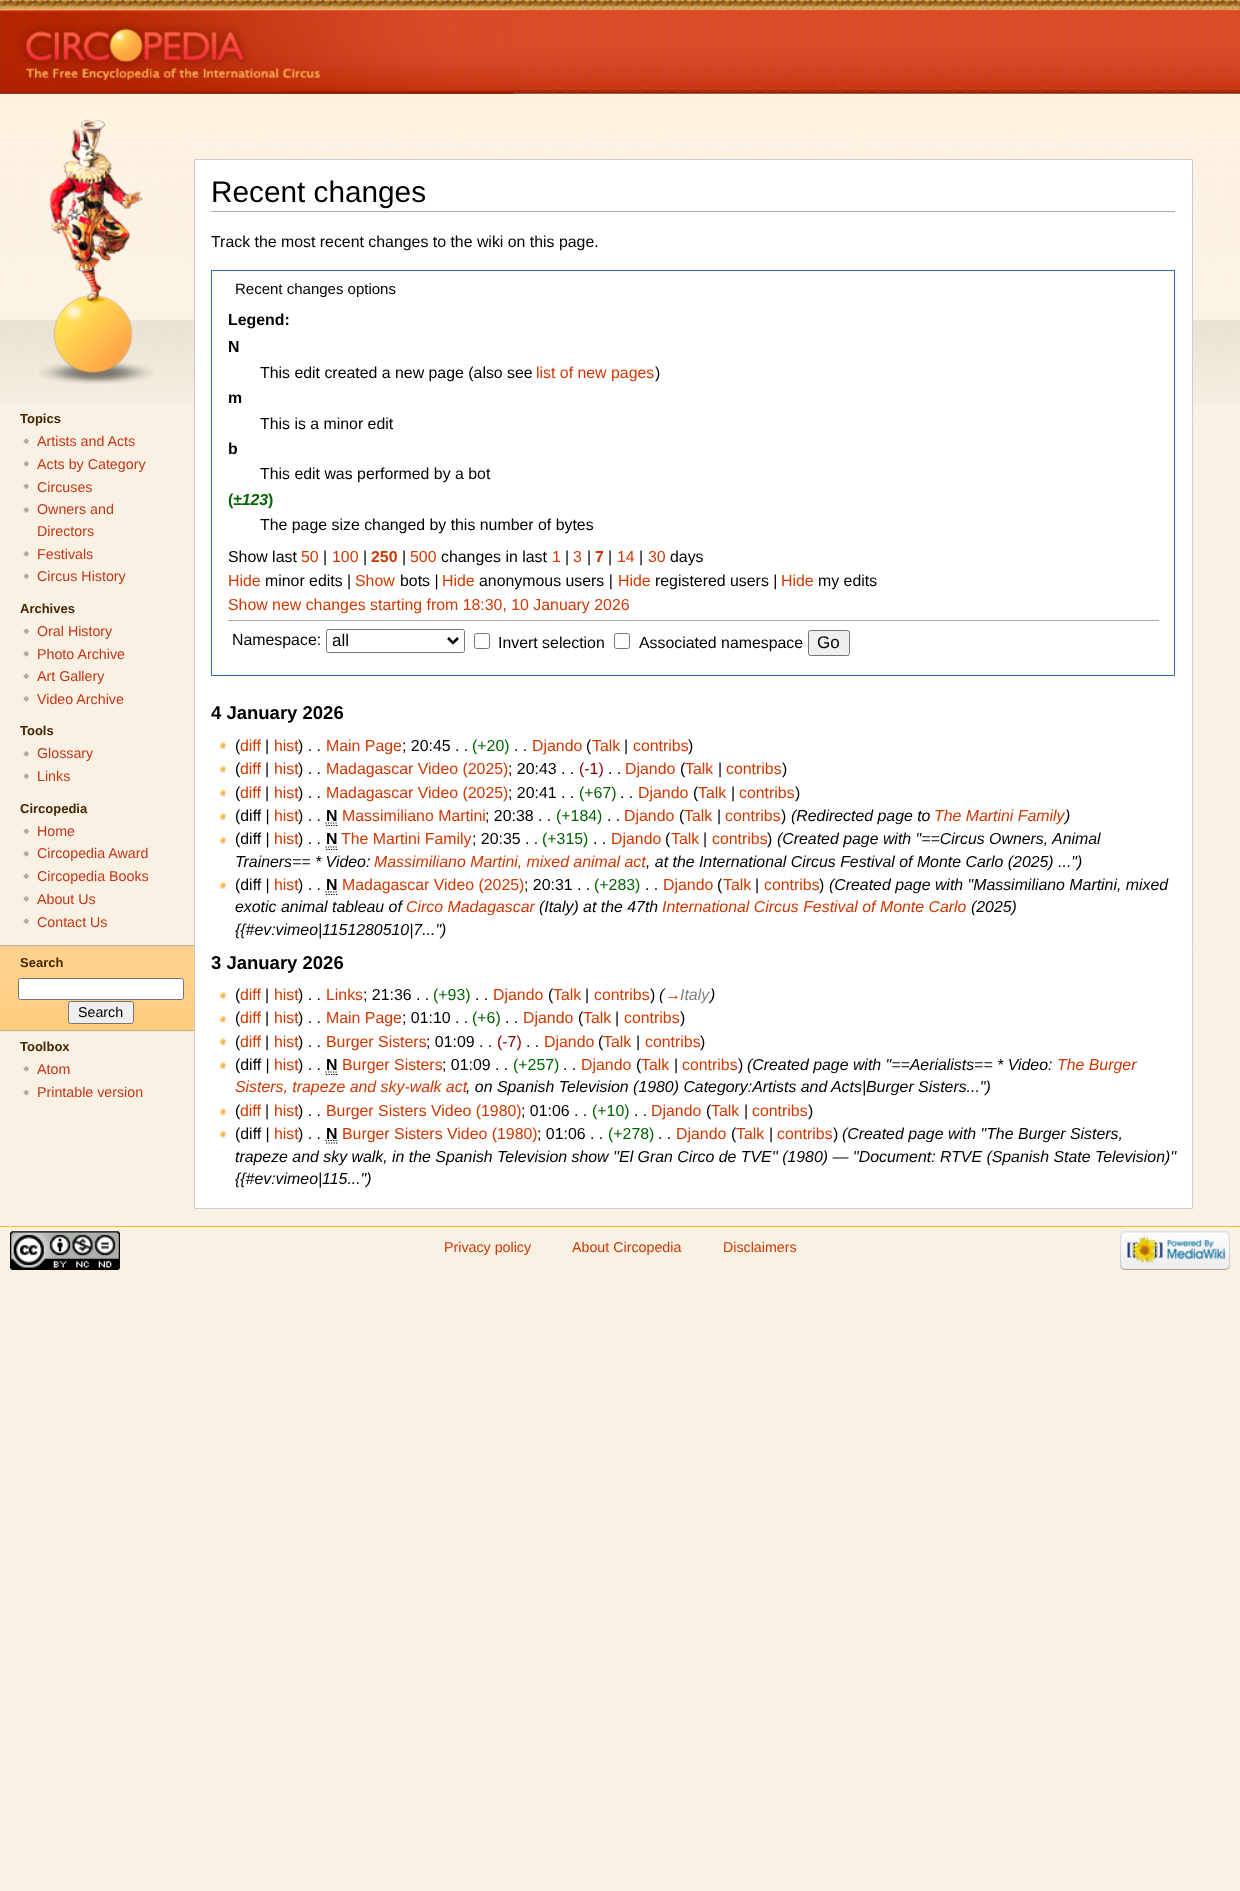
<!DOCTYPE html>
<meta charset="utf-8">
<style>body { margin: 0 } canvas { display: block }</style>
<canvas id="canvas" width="1240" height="1891"></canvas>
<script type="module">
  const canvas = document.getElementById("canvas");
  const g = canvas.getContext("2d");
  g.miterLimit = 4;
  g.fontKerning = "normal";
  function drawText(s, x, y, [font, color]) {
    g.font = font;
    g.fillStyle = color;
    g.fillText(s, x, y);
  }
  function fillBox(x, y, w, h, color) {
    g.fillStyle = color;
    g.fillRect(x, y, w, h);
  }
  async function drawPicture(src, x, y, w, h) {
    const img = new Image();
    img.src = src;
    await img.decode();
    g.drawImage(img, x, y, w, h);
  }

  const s1 = ["bold 13px Liberation Sans", "#442700"];
  const s2 = ["14.25px Liberation Sans", "#C63614"];
  const s3 = ["14.25px Liberation Sans", "#000000"];
  const s4 = ["29.75px Liberation Sans", "#000000"];
  const s5 = ["15.88px Liberation Sans", "#000000"];
  const s6 = ["15px Liberation Sans", "#000000"];
  const s7 = ["bold 15.88px Liberation Sans", "#000000"];
  const s8 = ["15.88px Liberation Sans", "#D13800"];
  const s9 = ["bold 15.88px Liberation Sans", "#006400"];
  const s10 = ["italic bold 15.88px Liberation Sans", "#006400"];
  const s11 = ["bold 15.88px Liberation Sans", "#D13800"];
  const s12 = ["17px Liberation Sans", "#000000"];
  const s13 = ["bold 18.5px Liberation Sans", "#000000"];
  const s14 = ["15.88px Liberation Sans", "#006400"];
  const s15 = ["15.88px Liberation Sans", "#8B0000"];
  const s16 = ["italic 15.88px Liberation Sans", "#000000"];
  const s17 = ["italic 15.88px Liberation Sans", "#D13800"];
  const s18 = ["italic 15.88px Liberation Sans", "#808080"];
  const s19 = ["14.25px Liberation Sans", "#D13800"];

  fillBox(0, 0, 1240, 1891, "#F9F1E4");
  await drawPicture("pic1.png", 0, 0, 1240, 406);
  await drawPicture("pic2.png", 0, 0, 514, 94);
  await drawPicture("pic3.png", 39, 120, 115, 264);
  drawText("Topics", 20, 423, s1);
  await drawPicture("pic4.png", 23, 438, 6, 6);
  drawText("Artists and Acts", 37, 446, s2);
  await drawPicture("pic5.png", 23, 461, 6, 6);
  drawText("Acts by Category", 37, 469, s2);
  await drawPicture("pic4.png", 23, 483, 6, 6);
  drawText("Circuses", 37, 492, s2);
  await drawPicture("pic6.png", 23, 507, 6, 6);
  drawText("Owners and", 37, 514, s2);
  drawText("Directors", 37, 536, s2);
  await drawPicture("pic5.png", 23, 551, 6, 6);
  drawText("Festivals", 37, 559, s2);
  await drawPicture("pic4.png", 23, 573, 6, 6);
  drawText("Circus History", 37, 581, s2);
  drawText("Archives", 20, 613, s1);
  await drawPicture("pic4.png", 23, 628, 6, 6);
  drawText("Oral History", 37, 636, s2);
  await drawPicture("pic5.png", 23, 651, 6, 6);
  drawText("Photo Archive", 37, 659, s2);
  await drawPicture("pic4.png", 23, 673, 6, 6);
  drawText("Art Gallery", 37, 681, s2);
  await drawPicture("pic5.png", 23, 696, 6, 6);
  drawText("Video Archive", 37, 704, s2);
  drawText("Tools", 20, 735, s1);
  await drawPicture("pic5.png", 23, 751, 6, 6);
  drawText("Glossary", 37, 758, s2);
  await drawPicture("pic4.png", 23, 773, 6, 6);
  drawText("Links", 37, 781, s2);
  drawText("Circopedia", 20, 813, s1);
  await drawPicture("pic4.png", 23, 828, 6, 6);
  drawText("Home", 37, 836, s2);
  await drawPicture("pic5.png", 23, 851, 6, 6);
  drawText("Circopedia Award", 37, 858, s2);
  await drawPicture("pic4.png", 23, 873, 6, 6);
  drawText("Circopedia Books", 37, 881, s2);
  await drawPicture("pic5.png", 23, 896, 6, 6);
  drawText("About Us", 37, 904, s2);
  await drawPicture("pic4.png", 23, 918, 6, 6);
  drawText("Contact Us", 37, 927, s2);
  fillBox(0, 946, 194, 84, "#FFC46C");
  await drawPicture("pic7.png", 0, 946, 194, 86);
  fillBox(0, 945, 194, 1, "#B8B19F");
  fillBox(0, 1030, 194, 1, "#B8B19F");
  drawText("Search", 20, 967, s1);
  g.fillStyle = "#FFFFFF";
  g.beginPath();
  g.roundRect(18.5, 978.5, 165, 21, 2);
  g.fill();
  g.strokeStyle = "#767676";
  g.stroke();
  g.fillStyle = "#EFEFEF";
  g.beginPath();
  g.roundRect(68.5, 1001.5, 65, 22, 2);
  g.fill();
  g.stroke();
  drawText("Search", 78, 1017, s3);
  drawText("Toolbox", 20, 1051, s1);
  await drawPicture("pic5.png", 23, 1066, 6, 6);
  drawText("Atom", 37, 1074, s2);
  await drawPicture("pic8.png", 23, 1090, 6, 6);
  drawText("Printable version", 37, 1097, s2);
  g.fillStyle = "#FFFFFF";
  g.beginPath();
  g.rect(194.5, 159.5, 998, 1049);
  g.fill();
  g.strokeStyle = "#CCCCCC";
  g.stroke();
  fillBox(211, 211, 964, 1, "#AAAAAA");
  drawText("Recent changes", 211, 202, s4);
  drawText("Track the most recent changes to the wiki on this page.", 211, 247, s5);
  g.strokeStyle = "#2F6FAB";
  g.strokeRect(211.5, 270.5, 963, 405);
  drawText("Recent changes options", 235, 294, s6);
  drawText("Legend:", 228, 325, s7);
  drawText("N", 228, 352, s7);
  drawText("This edit created a new page (also see", 260, 378, s5);
  drawText("list of new pages", 536, 378, s8);
  drawText(")", 655, 378, s5);
  drawText("m", 228, 403, s7);
  drawText("This is a minor edit", 260, 429, s5);
  drawText("b", 228, 454, s7);
  drawText("This edit was performed by a bot", 260, 479, s5);
  drawText("(", 228, 505, s9);
  drawText("±123", 233, 505, s10);
  drawText(")", 268, 505, s9);
  drawText("The page size changed by this number of bytes", 260, 530, s5);
  drawText("Show last", 228, 562, s5);
  drawText("50", 301, 562, s8);
  drawText("|", 323, 562, s5);
  drawText("100", 332, 562, s8);
  drawText("|", 363, 562, s5);
  drawText("250", 371, 562, s11);
  drawText("|", 402, 562, s5);
  drawText("500", 410, 562, s8);
  drawText("changes in last", 441, 562, s5);
  drawText("1", 552, 562, s8);
  drawText("|", 565, 562, s5);
  drawText("3", 573, 562, s8);
  drawText("|", 587, 562, s5);
  drawText("7", 595, 562, s11);
  drawText("|", 608, 562, s5);
  drawText("14", 617, 562, s8);
  drawText("|", 639, 562, s5);
  drawText("30", 648, 562, s8);
  drawText("days", 670, 562, s5);
  drawText("Hide", 228, 586, s8);
  drawText("minor edits |", 265, 586, s5);
  drawText("Show", 355, 586, s8);
  drawText("bots |", 400, 586, s5);
  drawText("Hide", 442, 586, s8);
  drawText("anonymous users |", 479, 586, s5);
  drawText("Hide", 618, 586, s8);
  drawText("registered users |", 655, 586, s5);
  drawText("Hide", 781, 586, s8);
  drawText("my edits", 818, 586, s5);
  drawText("Show new changes starting from 18:30, 10 January 2026", 228, 610, s8);
  fillBox(228, 620, 931, 1, "#AAAAAA");
  drawText("Namespace:", 232, 645, s5);
  g.beginPath();
  g.roundRect(326.5, 629.5, 138, 23, 2);
  g.strokeStyle = "#767676";
  g.stroke();
  g.beginPath();
  g.moveTo(448, 638);
  g.lineTo(453, 643);
  g.lineTo(458, 638);
  g.strokeStyle = "#000000";
  g.lineWidth = 2.5;
  g.stroke();
  g.save();
  g.beginPath();
  g.rect(333, 630, 111, 21);
  g.clip();
  drawText("all", 332, 646, s12);
  g.restore();
  g.beginPath();
  g.roundRect(474.5, 633.5, 15, 15, 2);
  g.strokeStyle = "#767676";
  g.lineWidth = 1;
  g.stroke();
  drawText("Invert selection", 498, 648, s5);
  g.beginPath();
  g.roundRect(614.5, 633.5, 15, 15, 2);
  g.stroke();
  drawText("Associated namespace", 639, 648, s5);
  g.fillStyle = "#EFEFEF";
  g.beginPath();
  g.roundRect(808.5, 630.5, 41, 25, 2);
  g.fill();
  g.stroke();
  drawText("Go", 817, 648, s12);
  drawText("4 January 2026", 211, 719, s13);
  await drawPicture("pic9.png", 220, 741, 7, 8);
  drawText("(", 235, 751, s5);
  drawText("diff", 240, 751, s8);
  drawText("|", 265, 751, s5);
  drawText("hist", 274, 751, s8);
  drawText(") . .", 298, 751, s5);
  drawText("Main Page", 326, 751, s8);
  drawText("; 20:45 . .", 402, 751, s5);
  drawText("(+20)", 472, 751, s14);
  drawText(". .", 514, 751, s5);
  drawText("Djando", 532, 751, s8);
  drawText("(", 586, 751, s5);
  drawText("Talk", 592, 751, s8);
  drawText("|", 624, 751, s5);
  drawText("contribs", 633, 751, s8);
  drawText(")", 688, 751, s5);
  await drawPicture("pic10.png", 220, 765, 7, 8);
  drawText("(", 235, 774, s5);
  drawText("diff", 240, 774, s8);
  drawText("|", 265, 774, s5);
  drawText("hist", 274, 774, s8);
  drawText(") . .", 298, 774, s5);
  drawText("Madagascar Video (2025)", 326, 774, s8);
  drawText("; 20:43 . .", 508, 774, s5);
  drawText("(-1)", 579, 774, s15);
  drawText(". .", 608, 774, s5);
  drawText("Djando", 625, 774, s8);
  drawText("(", 680, 774, s5);
  drawText("Talk", 685, 774, s8);
  drawText("|", 718, 774, s5);
  drawText("contribs", 726, 774, s8);
  drawText(")", 782, 774, s5);
  await drawPicture("pic11.png", 220, 788, 7, 9);
  drawText("(", 235, 798, s5);
  drawText("diff", 240, 798, s8);
  drawText("|", 265, 798, s5);
  drawText("hist", 274, 798, s8);
  drawText(") . .", 298, 798, s5);
  drawText("Madagascar Video (2025)", 326, 798, s8);
  drawText("; 20:41 . .", 508, 798, s5);
  drawText("(+67)", 579, 798, s14);
  drawText(". .", 620, 798, s5);
  drawText("Djando", 638, 798, s8);
  drawText("(", 693, 798, s5);
  drawText("Talk", 698, 798, s8);
  drawText("|", 731, 798, s5);
  drawText("contribs", 739, 798, s8);
  drawText(")", 795, 798, s5);
  await drawPicture("pic12.png", 220, 812, 7, 9);
  drawText("(diff |", 235, 821, s5);
  drawText("hist", 274, 821, s8);
  drawText(") . .", 298, 821, s5);
  drawText("N", 326, 821, s7);
  g.beginPath();
  g.moveTo(326, 825.5);
  g.lineTo(337.5, 825.5);
  g.moveTo(325.5, 823);
  g.lineTo(337, 823);
  g.strokeStyle = "#000000";
  g.lineWidth = 1.2;
  g.setLineDash([1.25, 1.25]);
  g.stroke();
  drawText("Massimiliano Martini", 342, 821, s8);
  drawText("; 20:38 . .", 485, 821, s5);
  drawText("(+184)", 556, 821, s14);
  drawText(". .", 607, 821, s5);
  drawText("Djando", 624, 821, s8);
  drawText("(", 679, 821, s5);
  drawText("Talk", 684, 821, s8);
  drawText("|", 717, 821, s5);
  drawText("contribs", 725, 821, s8);
  drawText(")", 781, 821, s5);
  drawText("(Redirected page to", 791, 821, s16);
  drawText("The Martini Family", 934, 821, s17);
  drawText(")", 1065, 821, s16);
  await drawPicture("pic9.png", 220, 836, 7, 8);
  drawText("(diff |", 235, 844, s5);
  drawText("hist", 274, 844, s8);
  drawText(") . .", 298, 844, s5);
  drawText("N", 326, 844, s7);
  g.beginPath();
  g.moveTo(326, 849.5);
  g.lineTo(337.5, 849.5);
  g.moveTo(325.5, 847);
  g.lineTo(337, 847);
  g.stroke();
  drawText("The Martini Family", 341, 844, s8);
  drawText("; 20:35 . .", 472, 844, s5);
  drawText("(+315)", 542, 844, s14);
  drawText(". .", 593, 844, s5);
  drawText("Djando", 611, 844, s8);
  drawText("(", 665, 844, s5);
  drawText("Talk", 671, 844, s8);
  drawText("|", 703, 844, s5);
  drawText("contribs", 712, 844, s8);
  drawText(")", 767, 844, s5);
  drawText("(Created page with \"==Circus Owners, Animal", 777, 844, s16);
  drawText("Trainers== * Video:", 235, 867, s16);
  drawText("Massimiliano Martini, mixed animal act", 374, 867, s17);
  drawText(", at the International Circus Festival of Monte Carlo (2025) ...\")", 646, 867, s16);
  await drawPicture("pic9.png", 220, 881, 7, 8);
  drawText("(diff |", 235, 890, s5);
  drawText("hist", 274, 890, s8);
  drawText(") . .", 298, 890, s5);
  drawText("N", 326, 890, s7);
  g.beginPath();
  g.moveTo(326, 894.5);
  g.lineTo(337.5, 894.5);
  g.moveTo(325.5, 892);
  g.lineTo(337, 892);
  g.stroke();
  drawText("Madagascar Video (2025)", 342, 890, s8);
  drawText("; 20:31 . .", 524, 890, s5);
  drawText("(+283)", 594, 890, s14);
  drawText(". .", 645, 890, s5);
  drawText("Djando", 663, 890, s8);
  drawText("(", 717, 890, s5);
  drawText("Talk", 723, 890, s8);
  drawText("|", 755, 890, s5);
  drawText("contribs", 764, 890, s8);
  drawText(")", 819, 890, s5);
  drawText("(Created page with \"Massimiliano Martini, mixed", 829, 890, s16);
  drawText("exotic animal tableau of", 235, 912, s16);
  drawText("Circo Madagascar", 406, 912, s17);
  drawText("(Italy) at the 47th", 539, 912, s16);
  drawText("International Circus Festival of Monte Carlo", 662, 912, s17);
  drawText("(2025)", 971, 912, s16);
  drawText("{{#ev:vimeo|1151280510|7...\")", 235, 935, s16);
  drawText("3 January 2026", 211, 969, s13);
  await drawPicture("pic9.png", 220, 991, 7, 8);
  drawText("(", 235, 1000, s5);
  drawText("diff", 240, 1000, s8);
  drawText("|", 265, 1000, s5);
  drawText("hist", 274, 1000, s8);
  drawText(") . .", 298, 1000, s5);
  drawText("Links", 326, 1000, s8);
  drawText("; 21:36 . .", 363, 1000, s5);
  drawText("(+93)", 433, 1000, s14);
  drawText("Djando", 493, 1000, s8);
  drawText("(", 548, 1000, s5);
  drawText("Talk", 553, 1000, s8);
  drawText("|", 585, 1000, s5);
  drawText("contribs", 594, 1000, s8);
  drawText(")", 650, 1000, s5);
  drawText("(", 659, 1000, s16);
  drawText("Italy", 680, 1000, s18);
  drawText(". .", 475, 1000, s5);
  drawText("→", 665, 1000, s17);
  drawText(")", 710, 1000, s16);
  await drawPicture("pic10.png", 220, 1015, 7, 8);
  drawText("(", 235, 1023, s5);
  drawText("diff", 240, 1023, s8);
  drawText("|", 265, 1023, s5);
  drawText("hist", 274, 1023, s8);
  drawText(") . .", 298, 1023, s5);
  drawText("Main Page", 326, 1023, s8);
  drawText("; 01:10 . .", 402, 1023, s5);
  drawText("(+6)", 472, 1023, s14);
  drawText(". .", 505, 1023, s5);
  drawText("Djando", 523, 1023, s8);
  drawText("(", 578, 1023, s5);
  drawText("Talk", 583, 1023, s8);
  drawText("|", 615, 1023, s5);
  drawText("contribs", 624, 1023, s8);
  drawText(")", 680, 1023, s5);
  await drawPicture("pic12.png", 220, 1037, 7, 9);
  drawText("(", 235, 1047, s5);
  drawText("diff", 240, 1047, s8);
  drawText("|", 265, 1047, s5);
  drawText("hist", 274, 1047, s8);
  drawText(") . .", 298, 1047, s5);
  drawText("Burger Sisters", 326, 1047, s8);
  drawText("; 01:09 . .", 426, 1047, s5);
  drawText("(-7)", 497, 1047, s15);
  drawText(". .", 526, 1047, s5);
  drawText("Djando", 544, 1047, s8);
  drawText("(", 598, 1047, s5);
  drawText("Talk", 603, 1047, s8);
  drawText("|", 636, 1047, s5);
  drawText("contribs", 645, 1047, s8);
  drawText(")", 700, 1047, s5);
  await drawPicture("pic9.png", 220, 1061, 7, 8);
  drawText("(diff |", 235, 1070, s5);
  drawText("hist", 274, 1070, s8);
  drawText(") . .", 298, 1070, s5);
  drawText("N", 326, 1070, s7);
  g.beginPath();
  g.moveTo(326, 1074.5);
  g.lineTo(337.5, 1074.5);
  g.moveTo(325.5, 1072);
  g.lineTo(337, 1072);
  g.stroke();
  drawText("Burger Sisters", 342, 1070, s8);
  drawText("; 01:09 . .", 442, 1070, s5);
  drawText("(+257)", 513, 1070, s14);
  drawText(". .", 563, 1070, s5);
  drawText("Djando", 581, 1070, s8);
  drawText("(", 636, 1070, s5);
  drawText("Talk", 641, 1070, s8);
  drawText("|", 674, 1070, s5);
  drawText("contribs", 682, 1070, s8);
  drawText(")", 738, 1070, s5);
  drawText("(Created page with \"==Aerialists== * Video:", 747, 1070, s16);
  drawText("The Burger", 1057, 1070, s17);
  drawText("Sisters, trapeze and sky-walk act", 235, 1092, s17);
  drawText(", on Spanish Television (1980) Category:Artists and Acts|Burger Sisters...\")", 466, 1092, s16);
  await drawPicture("pic12.png", 220, 1107, 7, 9);
  drawText("(", 235, 1116, s5);
  drawText("diff", 240, 1116, s8);
  drawText("|", 265, 1116, s5);
  drawText("hist", 274, 1116, s8);
  drawText(") . .", 298, 1116, s5);
  drawText("Burger Sisters Video (1980)", 326, 1116, s8);
  drawText("; 01:06 . .", 521, 1116, s5);
  drawText("(+10)", 592, 1116, s14);
  drawText(". .", 634, 1116, s5);
  drawText("Djando", 651, 1116, s8);
  drawText("(", 706, 1116, s5);
  drawText("Talk", 711, 1116, s8);
  drawText("|", 744, 1116, s5);
  drawText("contribs", 752, 1116, s8);
  drawText(")", 808, 1116, s5);
  await drawPicture("pic10.png", 220, 1130, 7, 8);
  drawText("(diff |", 235, 1139, s5);
  drawText("hist", 274, 1139, s8);
  drawText(") . .", 298, 1139, s5);
  drawText("N", 326, 1139, s7);
  g.beginPath();
  g.moveTo(326, 1143);
  g.lineTo(337.5, 1143);
  g.moveTo(325.5, 1140.5);
  g.lineTo(337, 1140.5);
  g.stroke();
  drawText("Burger Sisters Video (1980)", 342, 1139, s8);
  drawText("; 01:06 . .", 537, 1139, s5);
  drawText("(+278)", 608, 1139, s14);
  drawText(". .", 658, 1139, s5);
  drawText("Djando", 676, 1139, s8);
  drawText("(", 731, 1139, s5);
  drawText("Talk", 736, 1139, s8);
  drawText("|", 769, 1139, s5);
  drawText("contribs", 777, 1139, s8);
  drawText(")", 833, 1139, s5);
  drawText("(Created page with \"The Burger Sisters,", 842, 1139, s16);
  drawText("trapeze and sky walk, in the Spanish Television show ''El Gran Circo de TVE'' (1980) — ''Document: RTVE (Spanish State Television)''", 235, 1162, s16);
  drawText("{{#ev:vimeo|115...\")", 235, 1184, s16);
  fillBox(0, 1226, 1240, 1, "#FABD23");
  await drawPicture("pic13.png", 10, 1231, 110, 39);
  drawText("Privacy policy", 444, 1252, s19);
  drawText("About Circopedia", 572, 1252, s19);
  drawText("Disclaimers", 723, 1252, s19);
  await drawPicture("pic14.png", 1120, 1231, 110, 39);
</script>
